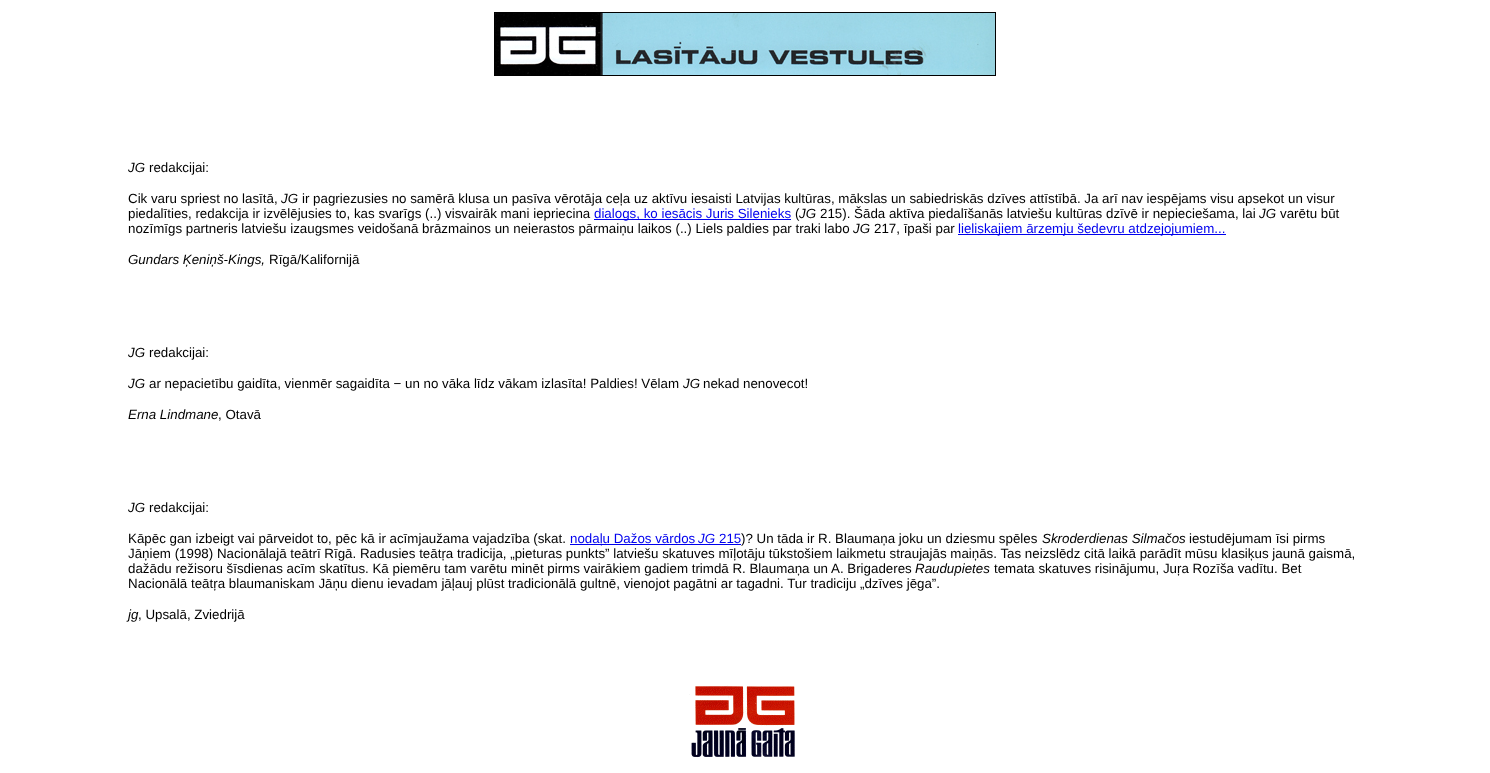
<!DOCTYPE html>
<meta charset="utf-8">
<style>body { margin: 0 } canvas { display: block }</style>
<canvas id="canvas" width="1490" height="773"></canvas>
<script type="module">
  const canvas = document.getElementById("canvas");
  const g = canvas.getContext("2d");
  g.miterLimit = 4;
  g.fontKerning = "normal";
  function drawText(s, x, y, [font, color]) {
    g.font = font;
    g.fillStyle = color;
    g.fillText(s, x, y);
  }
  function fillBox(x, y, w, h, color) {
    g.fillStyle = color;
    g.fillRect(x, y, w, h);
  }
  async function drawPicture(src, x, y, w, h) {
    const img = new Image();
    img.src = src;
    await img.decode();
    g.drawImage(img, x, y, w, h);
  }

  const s1 = ["italic 13.33px Liberation Sans", "#000000"];
  const s2 = ["13.33px Liberation Sans", "#000000"];
  const s3 = ["13.33px Liberation Sans", "#0000EE"];
  const s4 = ["italic 13.33px Liberation Sans", "#0000EE"];

  fillBox(0, 0, 1490, 773, "#FFFFFF");
  g.strokeStyle = "#000000";
  g.strokeRect(494.5, 12.5, 501, 63);
  await drawPicture("pic1.png", 495, 13, 500, 62);
  drawText("JG", 128, 172, s1);
  drawText("redakcijai:", 149, 172, s2);
  drawText("Cik varu spriest no lasītā,", 128, 203, s2);
  drawText("JG", 281, 203, s1);
  drawText("ir pagriezusies no samērā klusa un pasīva vērotāja ceļa uz aktīvu iesaisti Latvijas kultūras, mākslas un sabiedriskās dzīves attīstībā. Ja arī nav iespējams visu apsekot un visur", 302, 203, s2);
  drawText("piedalīties, redakcija ir izvēlējusies to, kas svarīgs (..) visvairāk mani iepriecina", 128, 218, s2);
  fillBox(594, 219, 197, 1, "#0000EE");
  drawText("dialogs, ko iesācis Juris Silenieks", 594, 218, s3);
  drawText("(", 795, 218, s2);
  drawText("JG", 799, 218, s1);
  drawText("215). Šāda aktīva piedalīšanās latviešu kultūras dzīvē ir nepieciešama, lai", 820, 218, s2);
  drawText("JG", 1259, 218, s1);
  drawText("varētu būt", 1280, 218, s2);
  drawText("nozīmīgs partneris latviešu izaugsmes veidošanā brāzmainos un neierastos pārmaiņu laikos (..) Liels paldies par traki labo", 128, 233, s2);
  drawText("JG", 853, 233, s1);
  drawText("217, īpaši par", 874, 233, s2);
  fillBox(958, 234, 268, 1, "#0000EE");
  drawText("lieliskajiem ārzemju šedevru atdzejojumiem...", 958, 233, s3);
  drawText("Gundars Ķeniņš-Kings,", 128, 264, s1);
  drawText("Rīgā/Kalifornijā", 269, 264, s2);
  drawText("JG", 128, 357, s1);
  drawText("redakcijai:", 149, 357, s2);
  drawText("JG", 128, 388, s1);
  drawText("ar nepacietību gaidīta, vienmēr sagaidīta − un no vāka līdz vākam izlasīta! Paldies! Vēlam", 149, 388, s2);
  drawText("JG", 683, 388, s1);
  drawText("nekad nenovecot!", 703, 388, s2);
  drawText("Erna Lindmane", 128, 419, s1);
  drawText(", Otavā", 218, 419, s2);
  drawText("JG", 128, 512, s1);
  drawText("redakcijai:", 149, 512, s2);
  drawText("Kāpēc gan izbeigt vai pārveidot to, pēc kā ir acīmjaužama vajadzība (skat.", 128, 543, s2);
  fillBox(570, 544, 171, 1, "#0000EE");
  drawText("nodaļu Dažos vārdos", 570, 543, s3);
  drawText("JG", 698, 543, s4);
  drawText("215", 719, 543, s3);
  drawText(")? Un tāda ir R. Blaumaņa joku un dziesmu spēles", 741, 543, s2);
  drawText("Skroderdienas Silmačos", 1042, 543, s1);
  drawText("iestudējumam īsi pirms", 1189, 543, s2);
  drawText("Jāņiem (1998) Nacionālajā teātrī Rīgā. Radusies teātŗa tradicija, „pieturas punkts” latviešu skatuves mīļotāju tūkstošiem laikmetu straujajās maiņās. Tas neizslēdz citā laikā parādīt mūsu klasiķus jaunā gaismā,", 128, 558, s2);
  drawText("dažādu režisoru šīsdienas acīm skatītus. Kā piemēru tam varētu minēt pirms vairākiem gadiem trimdā R. Blaumaņa un A. Brigaderes", 128, 573, s2);
  drawText("Raudupietes", 915, 573, s1);
  drawText("temata skatuves risinājumu, Juŗa Rozīša vadītu. Bet", 994, 573, s2);
  drawText("Nacionālā teātŗa blaumaniskam Jāņu dienu ievadam jāļauj plūst tradicionālā gultnē, vienojot pagātni ar tagadni. Tur tradiciju „dzīves jēga”.", 128, 588, s2);
  drawText("jg", 128, 619, s1);
  drawText(", Upsalā, Zviedrijā", 138, 619, s2);
  await drawPicture("pic2.png", 689, 685, 106, 73);
</script>
